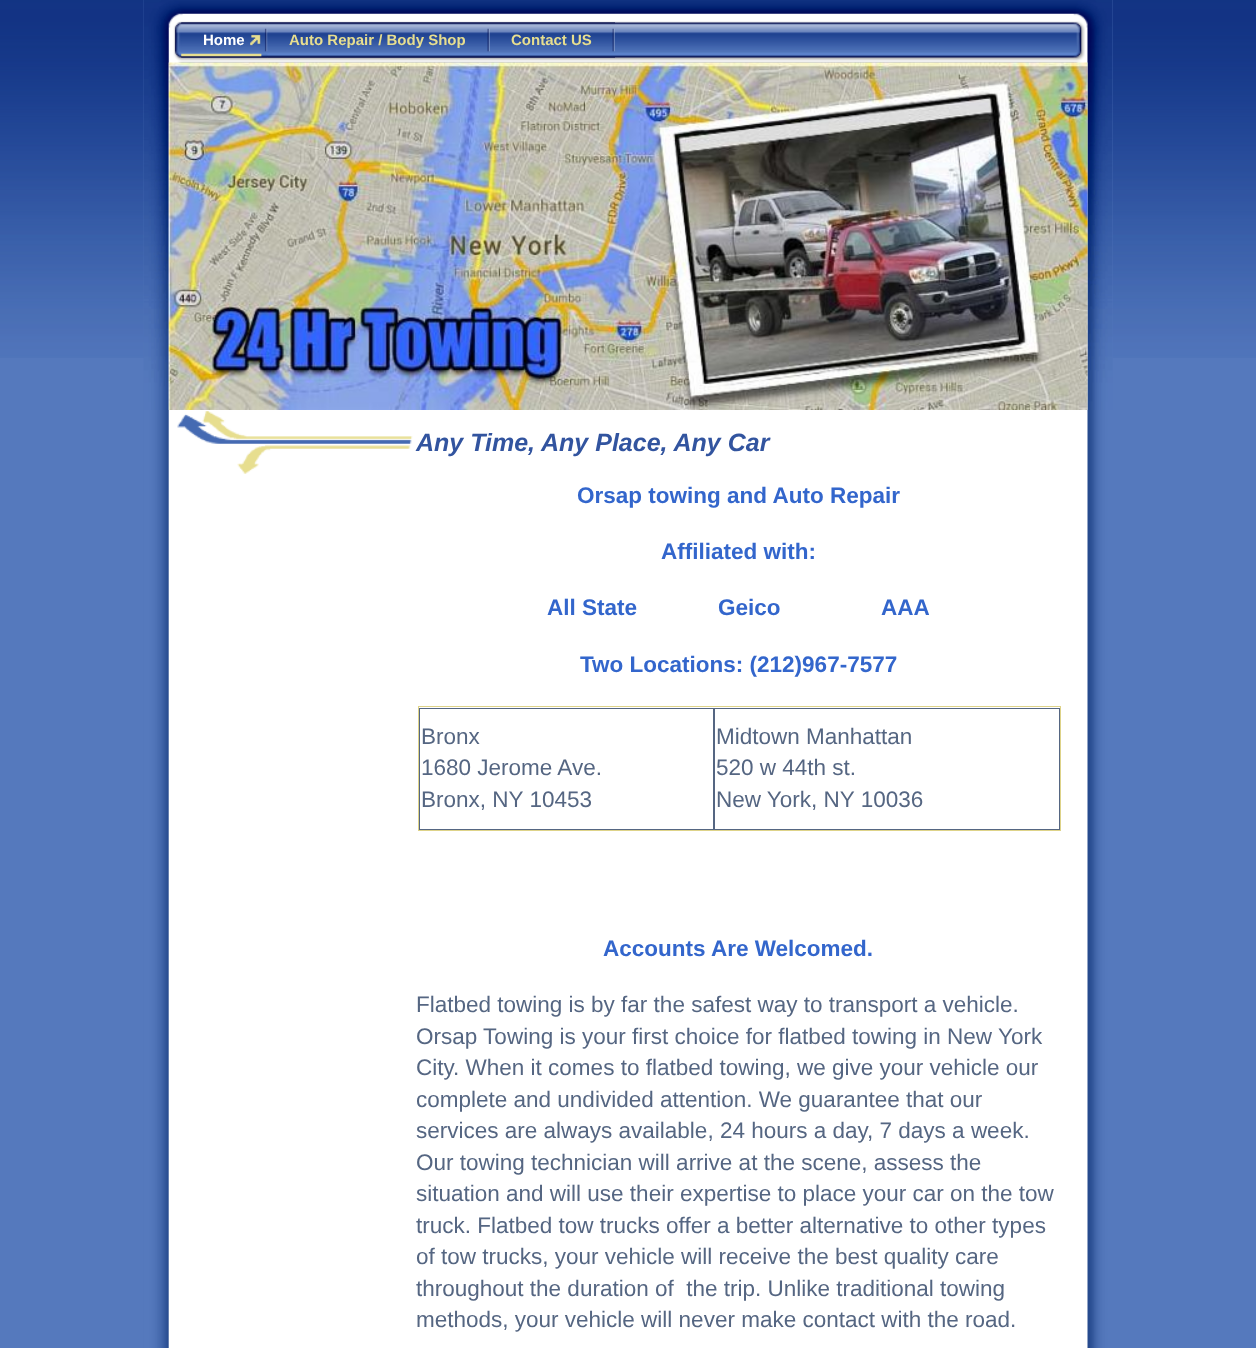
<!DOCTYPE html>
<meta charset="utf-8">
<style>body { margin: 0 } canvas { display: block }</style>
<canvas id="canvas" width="1256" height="1348"></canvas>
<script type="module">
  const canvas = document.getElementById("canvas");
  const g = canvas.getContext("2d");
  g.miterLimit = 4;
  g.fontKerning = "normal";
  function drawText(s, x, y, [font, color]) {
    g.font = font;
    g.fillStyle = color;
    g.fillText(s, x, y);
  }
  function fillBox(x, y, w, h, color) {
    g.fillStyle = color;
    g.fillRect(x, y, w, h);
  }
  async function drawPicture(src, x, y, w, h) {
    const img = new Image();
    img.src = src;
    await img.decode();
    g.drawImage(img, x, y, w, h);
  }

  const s1 = ["bold 15px Liberation Sans", "#FFFFFF"];
  const s2 = ["bold 15px Liberation Sans", "#E7DE8F"];
  const s3 = ["italic bold 25px Liberation Sans", "#32549F"];
  const s4 = ["bold 22.5px Liberation Sans", "#3366CC"];
  const s5 = ["22.5px Liberation Sans", "#556682"];

  fillBox(0, 0, 1256, 1348, "#5579BD");
  await drawPicture("pic1.png", 0, 0, 1256, 358);
  await drawPicture("pic2.png", 143, 0, 970, 1348);
  await drawPicture("pic3.png", 143, 0, 970, 410);
  await drawPicture("pic4.png", 173, 21, 912, 42);
  await drawPicture("pic5.png", 181, 22, 87, 36);
  drawText("Home", 203, 45, s1);
  await drawPicture("pic6.png", 267, 22, 223, 36);
  drawText("Auto Repair / Body Shop", 289, 45, s2);
  await drawPicture("pic7.png", 490, 22, 125, 36);
  drawText("Contact US", 511, 45, s2);
  await drawPicture("pic8.png", 168, 62, 920, 348);
  await drawPicture("pic9.png", 177, 411, 236, 63);
  drawText("Any Time, Any Place, Any Car", 416, 451, s3);
  drawText("Orsap towing and Auto Repair", 577, 503, s4);
  drawText("Affiliated with:", 661, 559, s4);
  drawText("All State", 547, 615, s4);
  drawText("Geico", 718, 615, s4);
  drawText("AAA", 881, 615, s4);
  drawText("Two Locations: (212)967-7577", 580, 672, s4);
  g.strokeStyle = "#DED389";
  g.strokeRect(418.5, 706.5, 642, 124);
  g.strokeStyle = "#556682";
  g.strokeRect(419.5, 708.5, 294, 121);
  drawText("Bronx", 421, 744, s5);
  drawText("1680 Jerome Ave.", 421, 775, s5);
  drawText("Bronx, NY 10453", 421, 807, s5);
  g.strokeRect(714.5, 708.5, 345, 121);
  drawText("Midtown Manhattan", 716, 744, s5);
  drawText("520 w 44th st.", 716, 775, s5);
  drawText("New York, NY 10036", 716, 807, s5);
  drawText("Accounts Are Welcomed.", 603, 956, s4);
  drawText("Flatbed towing is by far the safest way to transport a vehicle.", 416, 1012, s5);
  drawText("Orsap Towing is your first choice for flatbed towing in New York", 416, 1044, s5);
  drawText("City. When it comes to flatbed towing, we give your vehicle our", 416, 1075, s5);
  drawText("complete and undivided attention. We guarantee that our", 416, 1107, s5);
  drawText("services are always available, 24 hours a day, 7 days a week.", 416, 1138, s5);
  drawText("Our towing technician will arrive at the scene, assess the", 416, 1170, s5);
  drawText("situation and will use their expertise to place your car on the tow", 416, 1201, s5);
  drawText("truck. Flatbed tow trucks offer a better alternative to other types", 416, 1233, s5);
  drawText("of tow trucks, your vehicle will receive the best quality care", 416, 1264, s5);
  drawText("throughout the duration of  the trip. Unlike traditional towing", 416, 1296, s5);
  drawText("methods, your vehicle will never make contact with the road.", 416, 1327, s5);
</script>
